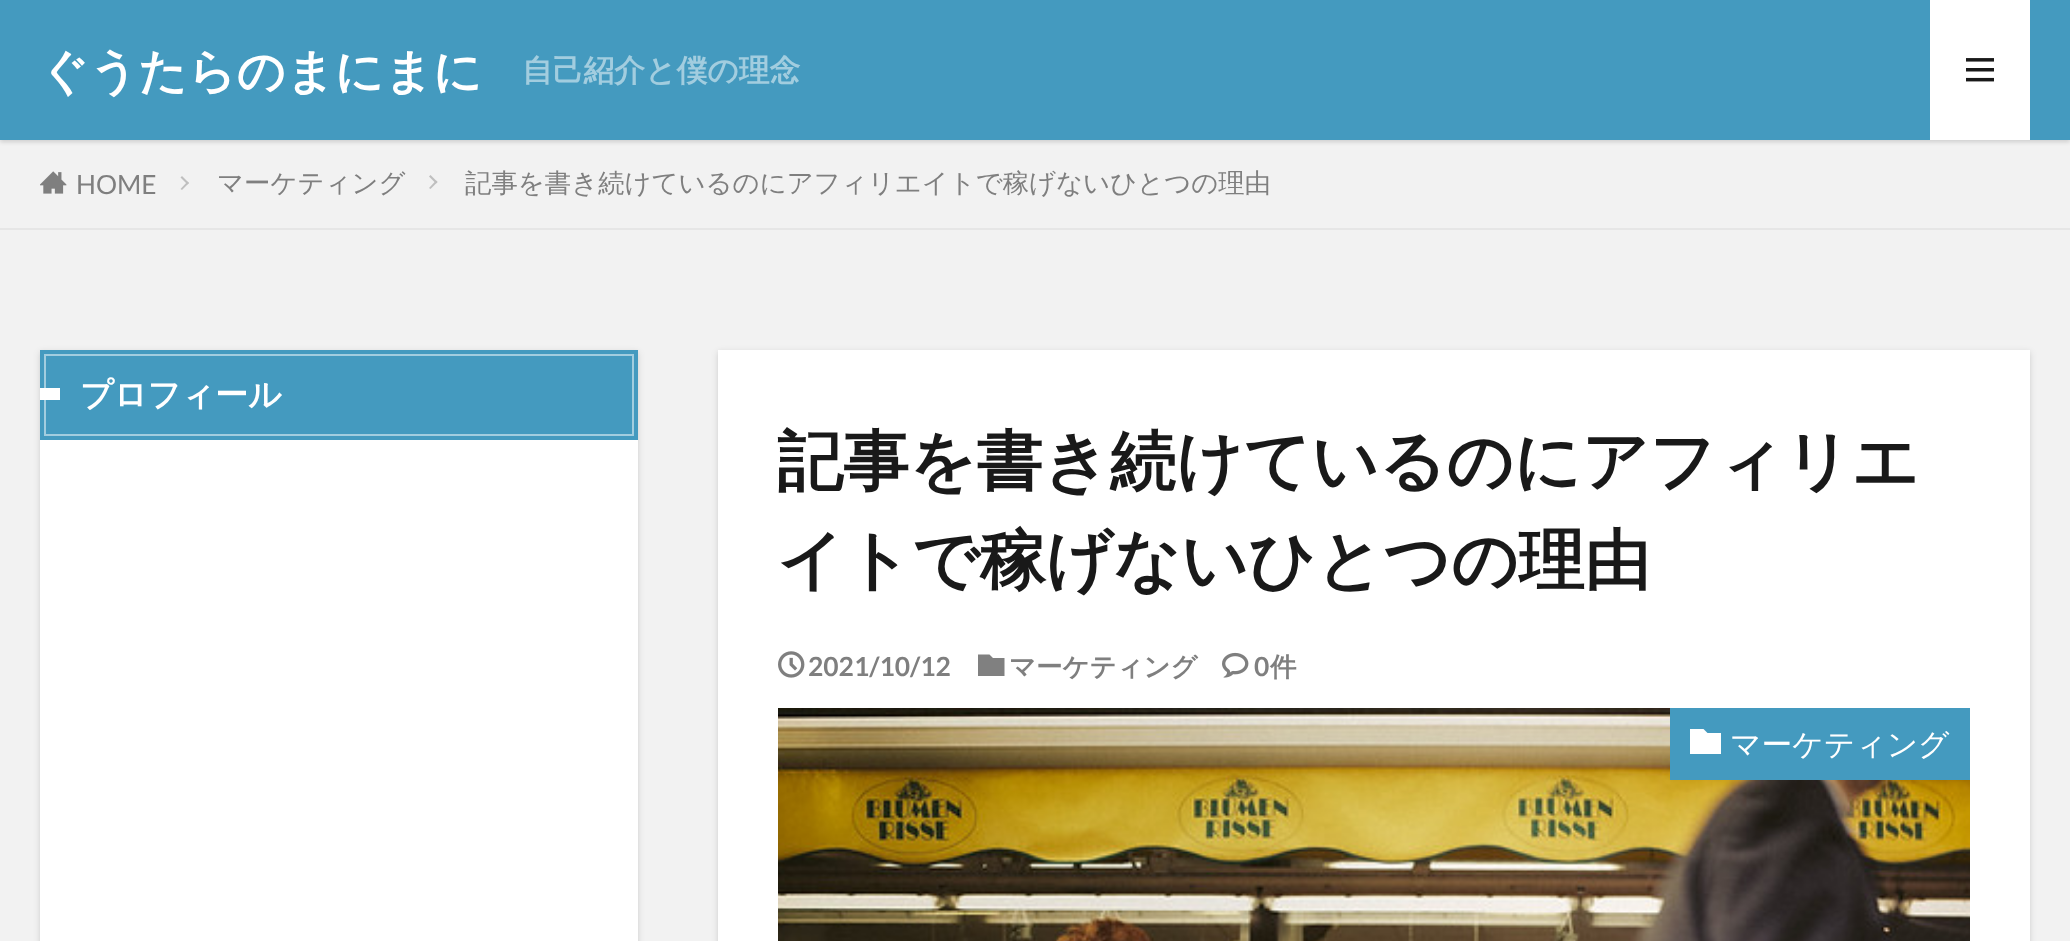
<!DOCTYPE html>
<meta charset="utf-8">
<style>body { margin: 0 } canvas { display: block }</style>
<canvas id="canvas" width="2070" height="941"></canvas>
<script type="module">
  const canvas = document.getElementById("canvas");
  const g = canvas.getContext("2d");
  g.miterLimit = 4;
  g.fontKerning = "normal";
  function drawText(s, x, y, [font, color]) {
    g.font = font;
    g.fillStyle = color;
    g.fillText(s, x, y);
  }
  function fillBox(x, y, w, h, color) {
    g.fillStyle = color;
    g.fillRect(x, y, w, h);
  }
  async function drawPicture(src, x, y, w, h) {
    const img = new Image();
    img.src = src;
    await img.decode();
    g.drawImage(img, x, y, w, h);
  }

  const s1 = ["bold 48px WenQuanYi Zen Hei", "#FFFFFF"];
  const s2 = ["bold 30.75px WenQuanYi Zen Hei", "#A2CDDF"];
  const s3 = ["26.4px Lato", "#7F7F7F"];
  const s4 = ["500 26.4px WenQuanYi Zen Hei", "#7F7F7F"];
  const s5 = ["bold 33px WenQuanYi Zen Hei", "#FFFFFF"];
  const s6 = ["bold 66px WenQuanYi Zen Hei", "#191919"];
  const s7 = ["bold 26.4px Lato", "#7F7F7F"];
  const s8 = ["bold 26.4px WenQuanYi Zen Hei", "#7F7F7F"];
  const s9 = ["500 30.75px WenQuanYi Zen Hei", "#FFFFFF"];

  fillBox(0, 0, 2070, 941, "#F2F2F2");
  g.fillStyle = "rgba(0, 0, 0, 0.15)";
  g.filter = "blur(2px)";
  g.beginPath();
  g.rect(0, 2, 2070, 140);
  g.fill();
  g.filter = "none";
  fillBox(0, 0, 2070, 140, "#449ABF");
  drawText("ぐうたらのまにまに", 40, 88, s1);
  drawText("自己紹介と僕の理念", 522, 81, s2);
  fillBox(1930, 0, 100, 140, "#FFFFFF");
  await drawPicture("pic1.png", 1966, 58, 28, 24);
  fillBox(0, 228, 2070, 2, "#E6E6E6");
  await drawPicture("pic2.png", 40, 171, 27, 23);
  drawText("HOME", 76, 194, s3);
  g.fillStyle = "#BFBFBF";
  g.beginPath();
  g.moveTo(182, 176);
  g.lineTo(189, 183);
  g.lineTo(187.5, 184.5);
  g.lineTo(180.5, 177.5);
  g.closePath();
  g.fill();
  g.beginPath();
  g.moveTo(187.5, 181.5);
  g.lineTo(189, 183);
  g.lineTo(182, 190);
  g.lineTo(180.5, 189);
  g.closePath();
  g.fill();
  drawText("マーケティング", 217, 192, s4);
  g.fillStyle = "#BFBFBF";
  g.beginPath();
  g.moveTo(430.5, 175);
  g.lineTo(437.5, 182);
  g.lineTo(436, 183.5);
  g.lineTo(429, 176.5);
  g.closePath();
  g.fill();
  g.beginPath();
  g.moveTo(436, 180.5);
  g.lineTo(437.5, 182);
  g.lineTo(430.5, 189);
  g.lineTo(429, 188);
  g.closePath();
  g.fill();
  drawText("記事を書き続けているのにアフィリエイトで稼げないひとつの理由", 465, 192, s4);
  g.fillStyle = "rgba(0, 0, 0, 0.15)";
  g.filter = "blur(3px)";
  g.beginPath();
  g.rect(40, 352, 598, 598);
  g.fill();
  g.filter = "none";
  fillBox(40, 440, 598, 501, "#FFFFFF");
  fillBox(40, 350, 598, 90, "#449ABF");
  g.strokeStyle = "#A2CDDF";
  g.lineWidth = 2;
  g.strokeRect(45, 355, 588, 80);
  fillBox(40, 388, 20, 12, "#FFFFFF");
  drawText("プロフィール", 80, 406, s5);
  g.fillStyle = "rgba(0, 0, 0, 0.15)";
  g.filter = "blur(3px)";
  g.beginPath();
  g.rect(718, 352, 1312, 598);
  g.fill();
  g.filter = "none";
  fillBox(718, 350, 1312, 591, "#FFFFFF");
  drawText("記事を書き続けているのにアフィリエ", 777, 484, s6);
  drawText("イトで稼げないひとつの理由", 777, 583, s6);
  await drawPicture("pic3.png", 778, 651, 27, 27);
  drawText("2021/10/12", 808, 676, s7);
  g.fillStyle = "#808080";
  g.beginPath();
  g.moveTo(989.5, 654.5);
  g.lineTo(993, 658);
  g.lineTo(1004.5, 658);
  g.lineTo(1004.5, 676);
  g.lineTo(978, 676);
  g.lineTo(978, 654.5);
  g.closePath();
  g.fill();
  drawText("マーケティング", 1009, 676, s8);
  await drawPicture("pic4.png", 1222, 652, 27, 26);
  drawText("0", 1254, 676, s7);
  drawText("件", 1270, 676, s8);
  await drawPicture("pic5.png", 778, 708, 1192, 233);
  fillBox(1670, 708, 300, 72, "#449ABF");
  g.fillStyle = "#FFFFFF";
  g.beginPath();
  g.moveTo(1703.5, 729);
  g.lineTo(1707.5, 733);
  g.lineTo(1721, 733);
  g.lineTo(1721, 754);
  g.lineTo(1690, 754);
  g.lineTo(1690, 729);
  g.closePath();
  g.fill();
  drawText("マーケティング", 1730, 755, s9);
</script>
